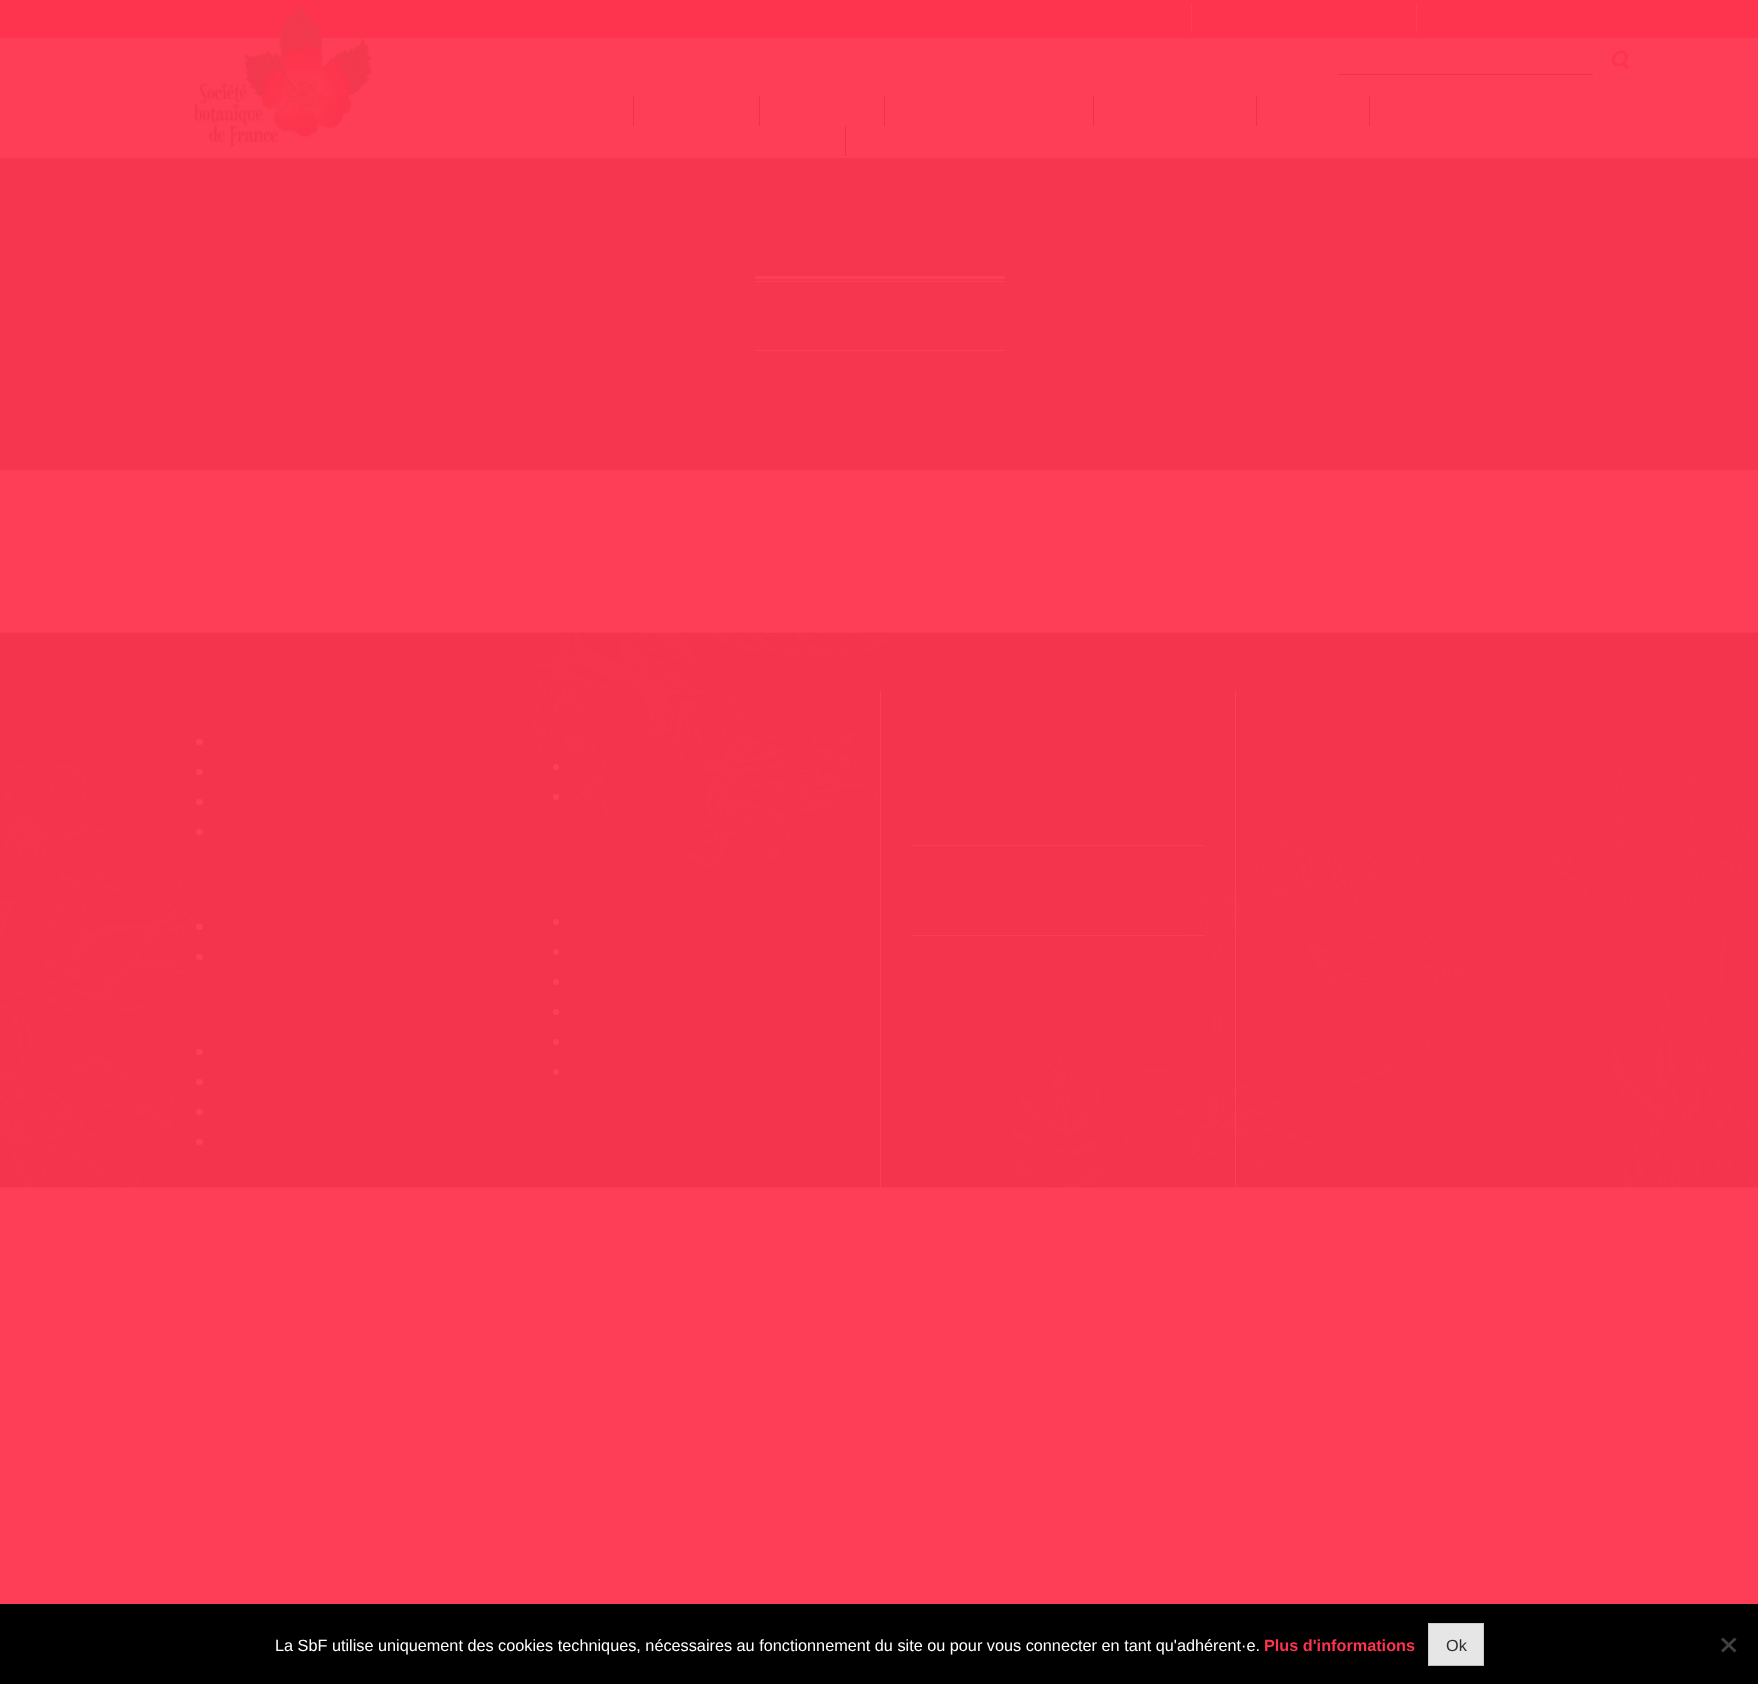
<!DOCTYPE html>
<meta charset="utf-8">
<style>body { margin: 0 } canvas { display: block }</style>
<canvas id="canvas" width="1758" height="1684"></canvas>
<script type="module">
  const canvas = document.getElementById("canvas");
  const g = canvas.getContext("2d");
  g.miterLimit = 4;
  g.fontKerning = "normal";
  function drawText(s, x, y, [font, color]) {
    g.font = font;
    g.fillStyle = color;
    g.fillText(s, x, y);
  }
  function fillBox(x, y, w, h, color) {
    g.fillStyle = color;
    g.fillRect(x, y, w, h);
  }
  function fillRounded(x, y, w, h, r, color) {
    g.fillStyle = color;
    g.beginPath();
    g.roundRect(x, y, w, h, r);
    g.fill();
  }
  async function drawPicture(src, x, y, w, h) {
    const img = new Image();
    img.src = src;
    await img.decode();
    g.drawImage(img, x, y, w, h);
  }

  const s1 = ["16.25px Liberation Sans", "#FFFFFF"];
  const s2 = ["bold 16.25px Liberation Sans", "#FE344E"];
  const s3 = ["16.25px Liberation Sans", "#2E2E2E"];

  fillBox(0, 0, 1758, 1684, "#FE3E57");
  fillBox(0, 0, 1758, 38, "#FE344E");
  fillBox(1191, 3, 1, 30, "#FE3E57");
  fillBox(1416, 3, 1, 30, "#FE3E57");
  await drawPicture("pic1.png", 193, 2, 180, 145);
  await drawPicture("pic2.png", 1611, 50, 18, 20);
  fillBox(1338, 74, 255, 1, "#F1314A");
  fillBox(633, 96, 1, 30, "#F1314A");
  fillBox(759, 96, 1, 30, "#F1314A");
  fillBox(884, 96, 1, 30, "#F1314A");
  fillBox(1093, 96, 1, 30, "#F1314A");
  fillBox(1256, 96, 1, 30, "#F1314A");
  fillBox(1369, 96, 1, 30, "#F1314A");
  fillBox(845, 126, 1, 30, "#F1314A");
  fillBox(0, 158, 1758, 312, "#F6364F");
  fillBox(755, 276, 250, 3, "#FE3E57");
  fillBox(755, 281, 250, 1, "#FE3E57");
  fillBox(755, 350, 250, 1, "#FE3E57");
  await drawPicture("pic3.png", 0, 632, 1758, 556);
  fillRounded(196, 739, 7, 6, 3, "#FE3E57");
  fillRounded(196, 769, 7, 6, 3, "#FE3E57");
  fillRounded(196, 799, 7, 6, 3, "#FE3E57");
  fillRounded(196, 829, 7, 6, 3, "#FE3E57");
  fillRounded(196, 924, 7, 6, 3, "#FE3E57");
  fillRounded(196, 954, 7, 6, 3, "#FE3E57");
  fillRounded(196, 1049, 7, 6, 3, "#FE3E57");
  fillRounded(196, 1079, 7, 6, 3, "#FE3E57");
  fillRounded(196, 1109, 7, 6, 3, "#FE3E57");
  fillRounded(196, 1139, 7, 6, 3, "#FE3E57");
  g.beginPath();
  g.arc(556, 767, 3, 0, Math.PI * 2);
  g.fill();
  g.beginPath();
  g.arc(556, 797, 3, 0, Math.PI * 2);
  g.fill();
  g.beginPath();
  g.arc(556, 922, 3, 0, Math.PI * 2);
  g.fill();
  g.beginPath();
  g.arc(556, 952, 3, 0, Math.PI * 2);
  g.fill();
  g.beginPath();
  g.arc(556, 982, 3, 0, Math.PI * 2);
  g.fill();
  g.beginPath();
  g.arc(556, 1012, 3, 0, Math.PI * 2);
  g.fill();
  g.beginPath();
  g.arc(556, 1042, 3, 0, Math.PI * 2);
  g.fill();
  g.beginPath();
  g.arc(556, 1072, 3, 0, Math.PI * 2);
  g.fill();
  fillBox(1235, 691, 1, 497, "#FE3E57");
  fillBox(880, 691, 1, 497, "#FC3D56");
  fillBox(911, 845, 294, 1, "#FB3B53");
  fillBox(911, 935, 294, 1, "#FB3B53");
  fillBox(0, 1604, 1758, 80, "#000000");
  drawText("La SbF utilise uniquement des cookies techniques, nécessaires au fonctionnement du site ou pour vous connecter en tant qu'adhérent·e.", 275, 1651, s1);
  drawText("Plus d'informations", 1264, 1651, s2);
  fillBox(1429, 1624, 54, 41, "#E6E6E6");
  fillBox(1428, 1623, 56, 1, "#CCCCCC");
  fillBox(1483, 1623, 1, 43, "#CCCCCC");
  fillBox(1428, 1665, 56, 1, "#BBBBBB");
  fillBox(1428, 1623, 1, 43, "#CCCCCC");
  drawText("Ok", 1446, 1651, s3);
  g.fillStyle = "#404040";
  g.beginPath();
  g.moveTo(1734.5, 1637.5);
  g.lineTo(1736.5, 1639.5);
  g.lineTo(1723, 1652.5);
  g.lineTo(1721, 1650.5);
  g.closePath();
  g.fill();
  g.beginPath();
  g.moveTo(1721, 1639.5);
  g.lineTo(1723, 1637.5);
  g.lineTo(1736.5, 1650.5);
  g.lineTo(1734.5, 1652.5);
  g.closePath();
  g.fill();
</script>
